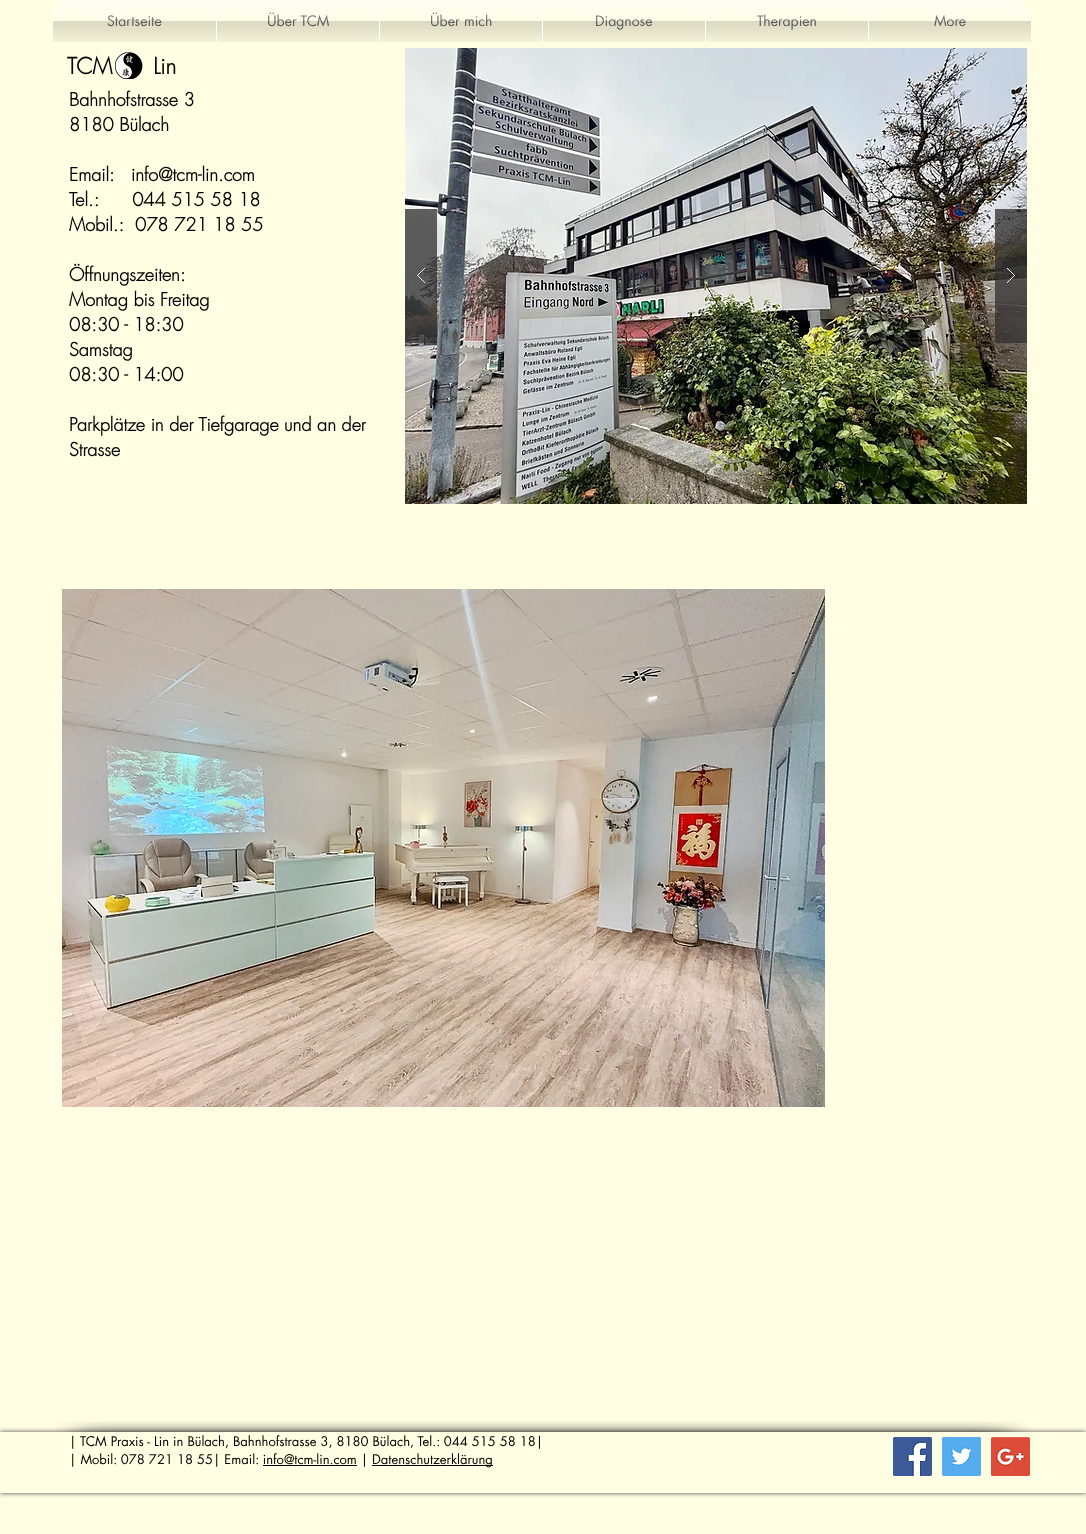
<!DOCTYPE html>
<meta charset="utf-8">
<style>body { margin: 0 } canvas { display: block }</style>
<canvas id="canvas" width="1086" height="1534"></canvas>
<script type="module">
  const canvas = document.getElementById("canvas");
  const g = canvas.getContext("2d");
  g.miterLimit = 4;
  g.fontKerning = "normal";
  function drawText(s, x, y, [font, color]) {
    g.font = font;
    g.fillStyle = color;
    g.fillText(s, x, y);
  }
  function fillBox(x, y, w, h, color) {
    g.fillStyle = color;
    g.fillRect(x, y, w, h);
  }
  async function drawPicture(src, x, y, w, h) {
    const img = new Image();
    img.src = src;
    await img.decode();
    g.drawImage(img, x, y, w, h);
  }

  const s1 = ["14px futura", "#606060"];
  const s2 = ["bold 22px futura", "#000000"];
  const s3 = ["bold 18px futura", "#000000"];
  const s4 = ["13px futura", "#000000"];

  fillBox(0, 0, 1086, 1534, "#FFFDE2");
  await drawPicture("pic1.png", 53, 0, 978, 42);
  drawText("Startseite", 107, 26, s1);
  await drawPicture("pic2.png", 53, 0, 163, 42);
  fillBox(216, 0, 1, 42, "#FFFFFF");
  drawText("Über TCM", 267, 26, s1);
  await drawPicture("pic3.png", 217, 0, 162, 42);
  fillBox(379, 0, 1, 42, "#FFFFFF");
  drawText("Über mich", 430, 26, s1);
  await drawPicture("pic4.png", 380, 0, 162, 42);
  fillBox(542, 0, 1, 42, "#FFFFFF");
  drawText("Diagnose", 595, 26, s1);
  await drawPicture("pic5.png", 543, 0, 162, 42);
  fillBox(705, 0, 1, 42, "#FFFFFF");
  drawText("Therapien", 757, 26, s1);
  await drawPicture("pic6.png", 706, 0, 162, 42);
  fillBox(868, 0, 1, 42, "#FFFFFF");
  drawText("More", 934, 26, s1);
  await drawPicture("pic7.png", 869, 0, 162, 42);
  drawText("TCM      Lin", 67, 74, s2);
  await drawPicture("pic8.png", 115, 51, 28, 28);
  await drawPicture("pic9.png", 405, 48, 622, 456);
  fillBox(405, 209, 32, 134, "rgba(47, 46, 46, 0.75)");
  await drawPicture("pic10.png", 417, 268, 8, 16);
  fillBox(995, 209, 32, 134, "rgba(47, 46, 46, 0.75)");
  await drawPicture("pic11.png", 1007, 268, 8, 16);
  drawText("Bahnhofstrasse 3", 69, 106, s3);
  drawText("8180 Bülach", 69, 131, s3);
  drawText("Email:", 69, 181, s3);
  drawText("info@tcm-lin.com", 131, 181, s3);
  drawText("Tel.:      044 515 58 18", 69, 206, s3);
  drawText("Mobil.:", 69, 231, s3);
  drawText("078 721 18 55", 135, 231, s3);
  drawText("Öffnungszeiten:", 69, 281, s3);
  drawText("Montag bis Freitag", 69, 306, s3);
  drawText("08:30 - 18:30", 69, 331, s3);
  drawText("Samstag", 69, 356, s3);
  drawText("08:30 - 14:00", 69, 381, s3);
  drawText("Parkplätze in der Tiefgarage und an der", 69, 431, s3);
  drawText("Strasse", 69, 456, s3);
  await drawPicture("pic12.png", 62, 589, 763, 518);
  g.save();
  g.beginPath();
  g.moveTo(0, 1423);
  g.lineTo(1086, 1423);
  g.lineTo(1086, 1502);
  g.lineTo(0, 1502);
  g.closePath();
  g.moveTo(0, 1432);
  g.lineTo(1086, 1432);
  g.lineTo(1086, 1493);
  g.lineTo(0, 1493);
  g.closePath();
  g.clip("evenodd");
  g.fillStyle = "rgba(0, 0, 0, 0.7)";
  g.filter = "blur(2.5px)";
  g.beginPath();
  g.rect(0, 1432, 1086, 61);
  g.fill();
  g.filter = "none";
  g.restore();
  await drawPicture("pic13.png", 56, 1421, 97, 11);
  await drawPicture("pic14.png", 153, 1421, 780, 11);
  await drawPicture("pic15.png", 933, 1421, 97, 11);
  drawText("| TCM Praxis - Lin in Bülach, Bahnhofstrasse 3, 8180 Bülach, Tel.: 044 515 58 18|", 69, 1446, s4);
  drawText("| Mobil: 078 721 18 55| Email: info@tcm-lin.com |", 69, 1464, s4);
  fillBox(263, 1465, 94, 1, "#000000");
  fillBox(372, 1465, 121, 1, "#000000");
  drawText("Datenschutzerklärung", 372, 1464, s4);
  await drawPicture("pic16.png", 893, 1437, 39, 39);
  await drawPicture("pic17.png", 942, 1437, 39, 39);
  await drawPicture("pic18.png", 991, 1437, 39, 39);
</script>
